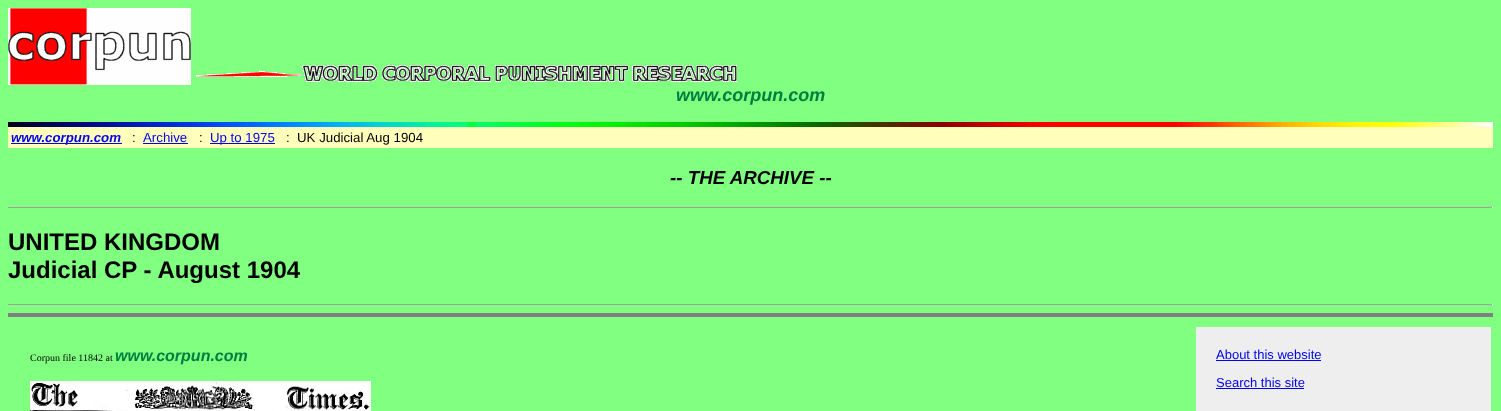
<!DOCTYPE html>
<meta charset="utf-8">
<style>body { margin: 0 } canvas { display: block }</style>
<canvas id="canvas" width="1501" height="411"></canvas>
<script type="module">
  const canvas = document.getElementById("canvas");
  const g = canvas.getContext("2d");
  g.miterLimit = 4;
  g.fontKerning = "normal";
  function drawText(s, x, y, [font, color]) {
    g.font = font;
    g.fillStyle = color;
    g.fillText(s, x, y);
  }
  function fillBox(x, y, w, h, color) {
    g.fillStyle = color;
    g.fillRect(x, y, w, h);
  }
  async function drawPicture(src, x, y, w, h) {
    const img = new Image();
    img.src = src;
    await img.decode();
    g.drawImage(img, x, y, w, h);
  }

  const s1 = ["italic bold 18px Liberation Sans", "#008040"];
  const s2 = ["italic bold 13.25px Liberation Sans", "#0000EE"];
  const s3 = ["13.25px Liberation Sans", "#000000"];
  const s4 = ["13.25px Liberation Sans", "#0000EE"];
  const s5 = ["italic bold 18.75px Liberation Sans", "#000000"];
  const s6 = ["bold 24px Liberation Sans", "#000000"];
  const s7 = ["10px Liberation Serif", "#000000"];
  const s8 = ["italic bold 16px Liberation Sans", "#008040"];
  const s9 = ["13px Liberation Sans", "#0000EE"];

  fillBox(0, 0, 1501, 411, "#80FF80");
  await drawPicture("pic1.png", 8, 8, 183, 77);
  await drawPicture("pic2.png", 196, 65, 541, 17);
  drawText("www.corpun.com", 676, 101, s1);
  await drawPicture("pic3.png", 8, 122, 1485, 5);
  fillBox(8, 127, 1485, 21, "#FFFFBB");
  fillBox(11, 143, 111, 1, "#0000EE");
  drawText("www.corpun.com", 11, 142, s2);
  drawText(":", 132, 142, s3);
  drawText("Archive", 143, 142, s4);
  fillBox(143, 143, 45, 1, "#0000EE");
  drawText(":", 199, 142, s3);
  fillBox(210, 143, 65, 1, "#0000EE");
  drawText("Up to 1975", 210, 142, s4);
  drawText(":  UK Judicial Aug 1904", 286, 142, s3);
  drawText("-- THE ARCHIVE --", 670, 184, s5);
  fillBox(8, 207, 1485, 1, "#9F9F9F");
  fillBox(1492, 207, 1, 1, "#EEEEEE");
  drawText("UNITED KINGDOM", 8, 250, s6);
  drawText("Judicial CP - August 1904", 8, 278, s6);
  fillBox(8, 304, 1485, 1, "#9F9F9F");
  fillBox(1492, 304, 1, 1, "#EEEEEE");
  fillBox(8, 313, 1485, 4, "#808080");
  drawText("Corpun file 11842 at", 30, 361, s7);
  drawText("www.corpun.com", 115, 361, s8);
  await drawPicture("pic4.png", 30, 381, 341, 30);
  fillBox(1196, 327, 295, 84, "#EEEEEE");
  drawText("About this website", 1216, 359, s9);
  fillBox(1216, 360, 105, 1, "#0000EE");
  drawText("Search this site", 1216, 387, s9);
  fillBox(1216, 388, 88, 1, "#0000EE");
</script>
